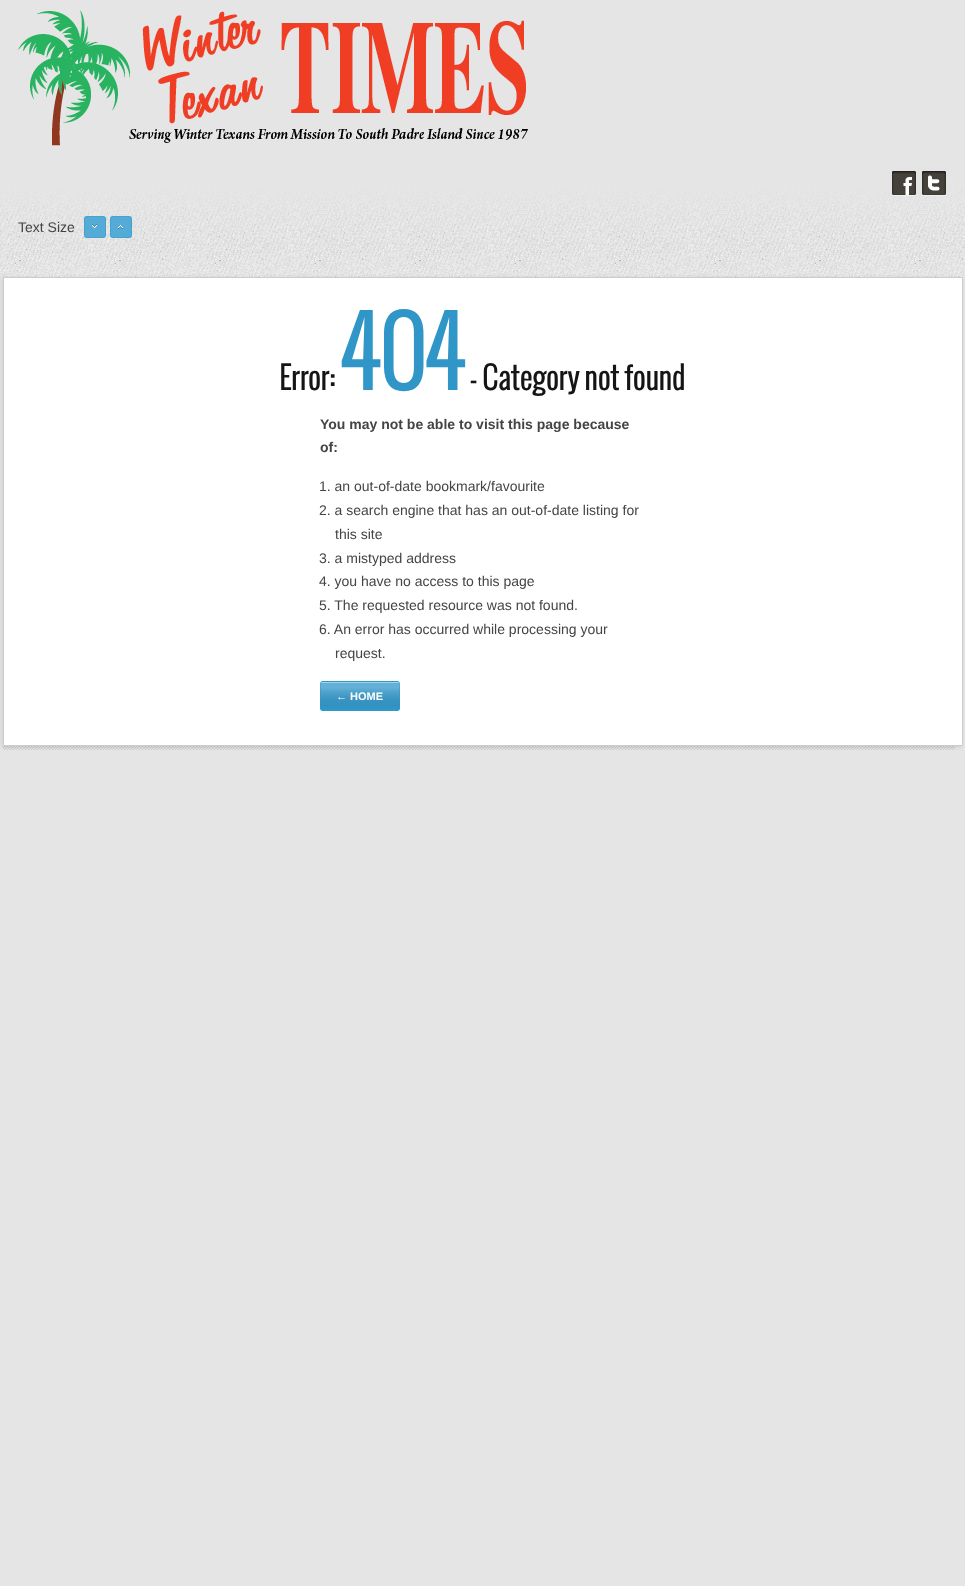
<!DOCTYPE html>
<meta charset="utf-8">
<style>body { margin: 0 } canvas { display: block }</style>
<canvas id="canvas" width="965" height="1586"></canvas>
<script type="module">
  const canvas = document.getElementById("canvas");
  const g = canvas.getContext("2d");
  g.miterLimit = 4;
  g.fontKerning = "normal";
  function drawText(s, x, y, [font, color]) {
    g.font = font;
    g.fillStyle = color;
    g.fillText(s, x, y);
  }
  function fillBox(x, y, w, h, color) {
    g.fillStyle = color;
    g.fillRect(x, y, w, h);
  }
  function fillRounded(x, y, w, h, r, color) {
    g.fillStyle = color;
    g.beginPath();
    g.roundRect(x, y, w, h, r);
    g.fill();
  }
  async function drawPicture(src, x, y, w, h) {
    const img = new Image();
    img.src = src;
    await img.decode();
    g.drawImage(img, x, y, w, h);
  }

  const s1 = ["14px Liberation Sans", "#444444"];
  const s2 = ["bold 30.75px Oswald", "#151515"];
  const s3 = ["bold 92px Oswald", "#3095C7"];
  const s4 = ["bold 14px Liberation Sans", "#444444"];
  const s5 = ["bold 11px Liberation Sans", "#FFFFFF"];

  fillBox(0, 0, 965, 1586, "#E5E5E5");
  await drawPicture("pic1.png", 0, 187, 965, 90);
  await drawPicture("pic2.png", 18, 10, 510, 136);
  await drawPicture("pic3.png", 892, 171, 24, 25);
  await drawPicture("pic4.png", 922, 171, 24, 25);
  drawText("Text Size", 18, 232, s1);
  fillRounded(84, 216, 22, 22, 3, "#54ABD6");
  await drawPicture("pic5.png", 92, 224, 5, 4);
  g.beginPath();
  g.roundRect(84.5, 216.5, 21, 21, 2.5);
  g.strokeStyle = "rgba(48, 149, 199, 0.4)";
  g.stroke();
  fillRounded(110, 216, 22, 22, 3, "#54ABD6");
  await drawPicture("pic6.png", 118, 225, 5, 4);
  g.beginPath();
  g.roundRect(110.5, 216.5, 21, 21, 2.5);
  g.stroke();
  g.fillStyle = "rgba(0, 0, 0, 0.1)";
  g.filter = "blur(2px)";
  g.beginPath();
  g.rect(2, 278, 960, 469);
  g.fill();
  g.filter = "none";
  g.fillStyle = "#FFFFFF";
  g.beginPath();
  g.rect(3.5, 277.5, 959, 468);
  g.fill();
  g.strokeStyle = "#CCCCCC";
  g.stroke();
  drawText("Error:", 279, 390, s2);
  drawText("404", 341, 390, s3);
  drawText("- Category not found", 469, 390, s2);
  drawText("You may not be able to visit this page because", 320, 429, s4);
  drawText("of:", 320, 452, s4);
  drawText("1. an out-of-date bookmark/favourite", 319, 491, s1);
  drawText("2. a search engine that has an out-of-date listing for", 319, 515, s1);
  drawText("this site", 335, 539, s1);
  drawText("3. a mistyped address", 319, 563, s1);
  drawText("4. you have no access to this page", 319, 586, s1);
  drawText("5. The requested resource was not found.", 319, 610, s1);
  drawText("6. An error has occurred while processing your", 319, 634, s1);
  drawText("request.", 335, 658, s1);
  fillRounded(320, 681, 80, 30, 3, "#3198CB");
  await drawPicture("pic7.png", 320, 682, 80, 27);
  g.beginPath();
  g.roundRect(320.5, 681.5, 79, 29, 2.5);
  g.strokeStyle = "rgba(48, 149, 199, 0.4)";
  g.stroke();
  drawText("← HOME", 336, 700, s5);
  await drawPicture("pic8.png", 3, 746, 952, 4);
</script>
